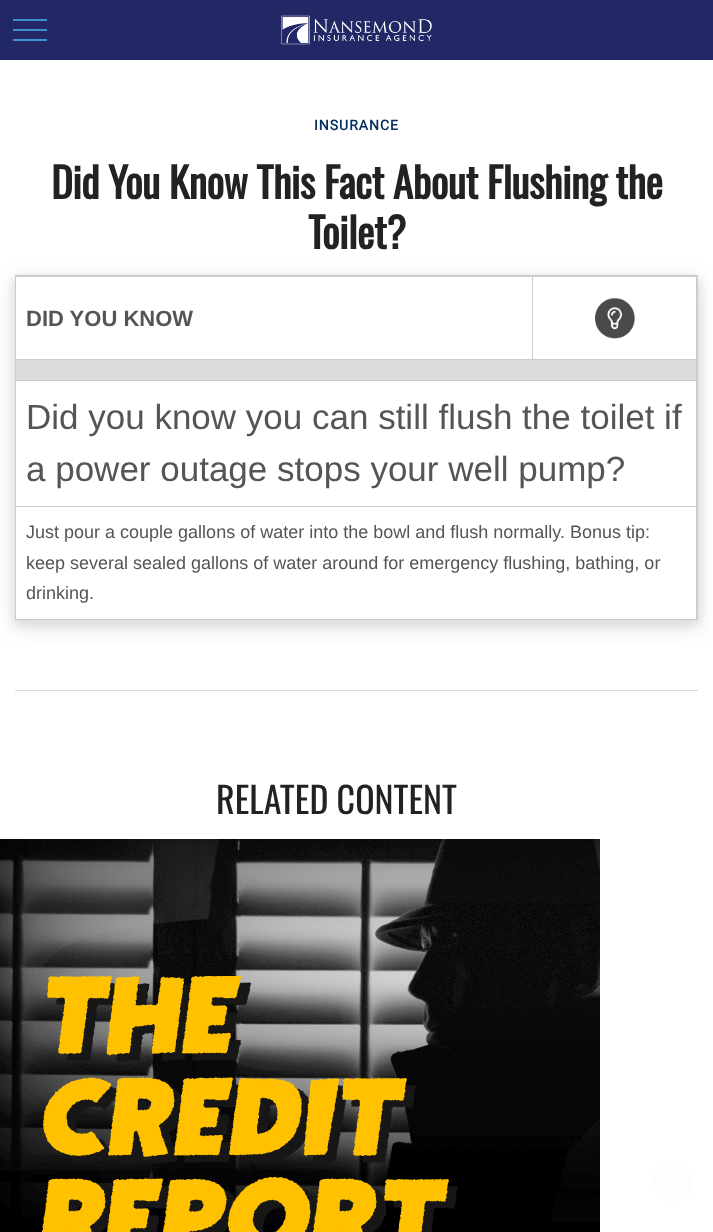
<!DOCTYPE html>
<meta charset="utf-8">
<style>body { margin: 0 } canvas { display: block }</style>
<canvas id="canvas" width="713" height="1232"></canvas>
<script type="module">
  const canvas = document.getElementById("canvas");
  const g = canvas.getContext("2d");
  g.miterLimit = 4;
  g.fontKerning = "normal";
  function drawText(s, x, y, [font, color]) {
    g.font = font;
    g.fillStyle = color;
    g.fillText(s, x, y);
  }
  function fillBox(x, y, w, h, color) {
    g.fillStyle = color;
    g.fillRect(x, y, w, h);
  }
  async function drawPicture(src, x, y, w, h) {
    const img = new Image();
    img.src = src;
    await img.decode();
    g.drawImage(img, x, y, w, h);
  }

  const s1 = ["bold 14px Roboto", "#032F60"];
  const s2 = ["bold 41.4px Oswald", "#222222"];
  const s3 = ["bold 22px Liberation Sans", "#555555"];
  const s4 = ["35px Liberation Sans", "#555555"];
  const s5 = ["18px Liberation Sans", "#555555"];
  const s6 = ["36px Oswald", "#222222"];

  fillBox(0, 0, 713, 1232, "#FFFFFF");
  fillBox(0, 0, 713, 60, "#212865");
  fillBox(13, 29, 34, 2, "#3E92CC");
  fillBox(13, 19, 34, 2, "#3E92CC");
  fillBox(13, 39, 34, 2, "#3E92CC");
  await drawPicture("pic1.png", 281, 15, 151, 30);
  g.letterSpacing = "1px";
  drawText("INSURANCE", 314, 130, s1);
  g.letterSpacing = "-0.5px";
  drawText("Did You Know This Fact About Flushing the", 51, 199, s2);
  drawText("Toilet?", 308, 249, s2);
  g.save();
  g.beginPath();
  g.moveTo(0, 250);
  g.lineTo(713, 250);
  g.lineTo(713, 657);
  g.lineTo(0, 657);
  g.closePath();
  g.moveTo(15, 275);
  g.lineTo(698, 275);
  g.lineTo(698, 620);
  g.lineTo(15, 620);
  g.closePath();
  g.clip("evenodd");
  g.fillStyle = "#DCDCDC";
  g.filter = "blur(10px)";
  g.beginPath();
  g.rect(15, 281, 683, 345);
  g.fill();
  g.filter = "none";
  g.restore();
  g.save();
  g.beginPath();
  g.moveTo(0, 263);
  g.lineTo(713, 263);
  g.lineTo(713, 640);
  g.lineTo(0, 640);
  g.closePath();
  g.moveTo(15, 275);
  g.lineTo(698, 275);
  g.lineTo(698, 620);
  g.lineTo(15, 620);
  g.closePath();
  g.clip("evenodd");
  g.fillStyle = "#DCDCDC";
  g.filter = "blur(5px)";
  g.beginPath();
  g.rect(15, 279, 683, 345);
  g.fill();
  g.filter = "none";
  g.restore();
  g.strokeStyle = "#CCCCCC";
  g.strokeRect(15.5, 275.5, 682, 344);
  fillBox(16, 276, 681, 1, "#CCCCCC");
  fillBox(532, 276, 1, 83, "#CCCCCC");
  g.letterSpacing = "0px";
  drawText("DID YOU KNOW", 26, 326, s3);
  fillBox(696, 276, 1, 83, "#CCCCCC");
  await drawPicture("pic2.png", 595, 297, 40, 42);
  fillBox(16, 360, 680, 20, "#DCDCDC");
  fillBox(16, 359, 681, 1, "#CCCCCC");
  fillBox(696, 359, 1, 21, "#CCCCCC");
  fillBox(16, 380, 681, 1, "#CCCCCC");
  fillBox(696, 380, 1, 126, "#CCCCCC");
  drawText("Did you know you can still flush the toilet if", 26, 429, s4);
  drawText("a power outage stops your well pump?", 26, 481, s4);
  fillBox(16, 506, 681, 1, "#CCCCCC");
  fillBox(696, 506, 1, 113, "#CCCCCC");
  drawText("Just pour a couple gallons of water into the bowl and flush normally. Bonus tip:", 26, 538, s5);
  drawText("keep several sealed gallons of water around for emergency flushing, bathing, or", 26, 569, s5);
  drawText("drinking.", 26, 599, s5);
  fillBox(15, 690, 683, 1, "#D8D8D6");
  drawText("RELATED CONTENT", 216, 814, s6);
  await drawPicture("pic3.png", 0, 839, 600, 393);
  g.fillStyle = "#FCFDFE";
  g.beginPath();
  g.arc(673, 1182, 20, 0, Math.PI * 2);
  g.fill();
</script>
